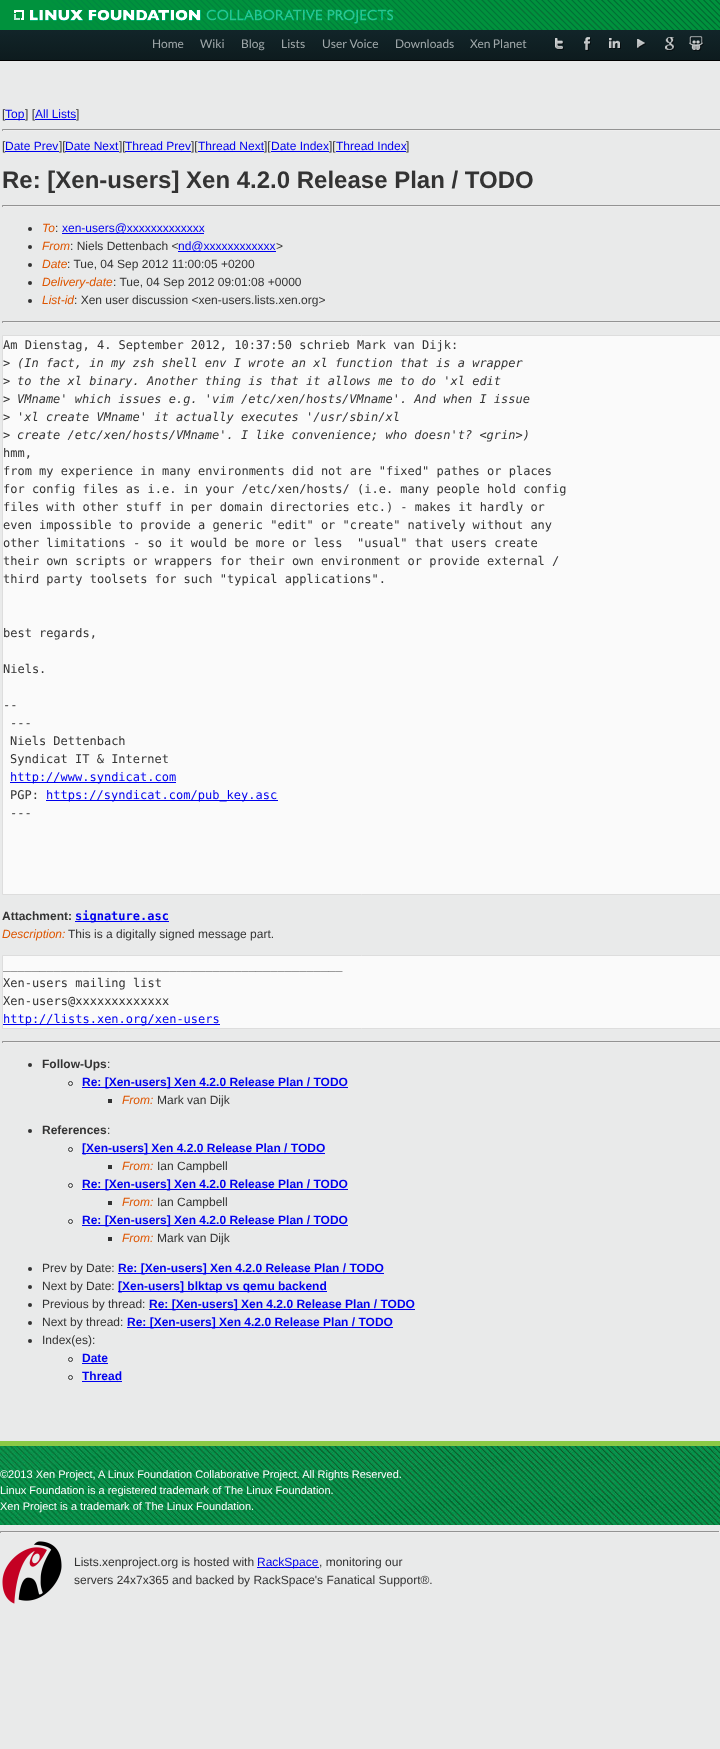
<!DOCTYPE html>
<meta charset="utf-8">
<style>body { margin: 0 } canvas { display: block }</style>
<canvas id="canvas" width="720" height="1749"></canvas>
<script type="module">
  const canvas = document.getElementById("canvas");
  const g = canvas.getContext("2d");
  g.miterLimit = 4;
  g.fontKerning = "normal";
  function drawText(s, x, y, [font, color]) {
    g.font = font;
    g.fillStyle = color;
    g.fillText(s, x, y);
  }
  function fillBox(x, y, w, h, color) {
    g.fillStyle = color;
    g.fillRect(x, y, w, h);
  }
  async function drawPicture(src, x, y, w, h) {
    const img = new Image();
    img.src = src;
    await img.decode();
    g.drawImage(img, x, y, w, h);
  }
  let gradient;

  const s1 = ["12px Lato", "#A1A9AB"];
  const s2 = ["12px Liberation Sans", "#333333"];
  const s3 = ["12px Liberation Sans", "#0000EE"];
  const s4 = ["bold 24px Liberation Sans", "#333333"];
  const s5 = ["italic 12px Liberation Sans", "#DD5500"];
  const s6 = ["12px DejaVu Sans Mono", "#333333"];
  const s7 = ["italic 12px DejaVu Sans Mono", "#333333"];
  const s8 = ["12px DejaVu Sans Mono", "#0000EE"];
  const s9 = ["bold 12px Liberation Sans", "#333333"];
  const s10 = ["bold 12px DejaVu Sans Mono", "#0000EE"];
  const s11 = ["bold 12px Liberation Sans", "#0000EE"];
  const s12 = ["11px Liberation Sans", "#FFFFFF"];

  fillBox(0, 0, 720, 1749, "#E9EAEA");
  await drawPicture("pic1.png", 0, 0, 720, 30);
  await drawPicture("pic2.png", 14, 9, 379, 15);
  gradient = g.createLinearGradient(360, 30, 360, 60);
  gradient.addColorStop(0, "#122529");
  gradient.addColorStop(1, "#0D1B1E");
  g.fillStyle = gradient;
  g.fillRect(0, 30, 720, 30);
  fillBox(0, 60, 720, 1, "#000000");
  drawText("Home", 152, 48, s1);
  drawText("Wiki", 200, 48, s1);
  drawText("Blog", 241, 48, s1);
  drawText("Lists", 281, 48, s1);
  drawText("User Voice", 322, 48, s1);
  drawText("Downloads", 395, 48, s1);
  drawText("Xen Planet", 470, 48, s1);
  await drawPicture("pic3.png", 555, 38, 9, 12);
  await drawPicture("pic4.png", 584, 37, 7, 14);
  await drawPicture("pic5.png", 609, 38, 12, 11);
  await drawPicture("pic6.png", 637, 39, 9, 10);
  await drawPicture("pic7.png", 665, 37, 10, 14);
  await drawPicture("pic8.png", 689, 36, 15, 15);
  drawText("[", 2, 118, s2);
  fillBox(5, 119, 20, 1, "#0000EE");
  drawText("Top", 5, 118, s3);
  drawText("] [", 25, 118, s2);
  drawText("All Lists", 35, 118, s3);
  drawText("]", 76, 118, s2);
  fillBox(35, 119, 41, 1, "#0000EE");
  fillBox(2, 129, 718, 1, "#939393");
  fillBox(2, 130, 718, 1, "#EEEEEE");
  fillBox(2, 129, 1, 2, "#9F9F9F");
  drawText("[", 2, 150, s2);
  drawText("Date Prev", 5, 150, s3);
  fillBox(5, 151, 54, 1, "#0000EE");
  drawText("][", 59, 150, s2);
  drawText("Date Next", 65, 150, s3);
  fillBox(65, 151, 54, 1, "#0000EE");
  drawText("][", 119, 150, s2);
  drawText("Thread Prev", 125, 150, s3);
  fillBox(125, 151, 66, 1, "#0000EE");
  drawText("][", 191, 150, s2);
  drawText("Thread Next", 198, 150, s3);
  fillBox(198, 151, 66, 1, "#0000EE");
  drawText("][", 264, 150, s2);
  drawText("Date Index", 271, 150, s3);
  fillBox(271, 151, 58, 1, "#0000EE");
  drawText("][", 329, 150, s2);
  drawText("Thread Index", 336, 150, s3);
  fillBox(336, 151, 70, 1, "#0000EE");
  drawText("]", 406, 150, s2);
  drawText("Re: [Xen-users] Xen 4.2.0 Release Plan / TODO", 2, 188, s4);
  fillBox(2, 205, 718, 1, "#939393");
  fillBox(2, 206, 718, 1, "#EEEEEE");
  fillBox(2, 205, 1, 2, "#9F9F9F");
  g.fillStyle = "#333333";
  g.beginPath();
  g.arc(30, 229, 2, 0, Math.PI * 2);
  g.fill();
  drawText("To", 42, 232, s5);
  drawText(":", 55, 232, s2);
  fillBox(62, 233, 142, 1, "#0000EE");
  drawText("xen-users@xxxxxxxxxxxxx", 62, 232, s3);
  g.fillStyle = "#333333";
  g.beginPath();
  g.arc(30, 247, 2, 0, Math.PI * 2);
  g.fill();
  drawText("From", 42, 250, s5);
  drawText(": Niels Dettenbach <", 70, 250, s2);
  fillBox(178, 251, 98, 1, "#0000EE");
  drawText("nd@xxxxxxxxxxxx", 178, 250, s3);
  drawText(">", 276, 250, s2);
  g.beginPath();
  g.arc(30, 265, 2, 0, Math.PI * 2);
  g.fill();
  drawText("Date", 42, 268, s5);
  drawText(": Tue, 04 Sep 2012 11:00:05 +0200", 67, 268, s2);
  g.beginPath();
  g.arc(30, 283, 2, 0, Math.PI * 2);
  g.fill();
  drawText("Delivery-date", 42, 286, s5);
  drawText(": Tue, 04 Sep 2012 09:01:08 +0000", 113, 286, s2);
  g.beginPath();
  g.arc(30, 301, 2, 0, Math.PI * 2);
  g.fill();
  drawText("List-id", 42, 304, s5);
  drawText(": Xen user discussion <xen-users.lists.xen.org>", 74, 304, s2);
  fillBox(2, 321, 718, 1, "#939393");
  fillBox(2, 322, 718, 1, "#EEEEEE");
  fillBox(2, 321, 1, 2, "#9F9F9F");
  g.fillStyle = "#FAFAFA";
  g.beginPath();
  g.rect(2.5, 335.5, 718, 559);
  g.fill();
  g.strokeStyle = "#DDDDDD";
  g.stroke();
  drawText("Am Dienstag, 4. September 2012, 10:37:50 schrieb Mark van Dijk:", 3, 349, s6);
  drawText(">", 3, 367, s6);
  drawText("(In fact, in my zsh shell env I wrote an xl function that is a wrapper", 17, 367, s7);
  drawText(">", 3, 385, s6);
  drawText("to the xl binary. Another thing is that it allows me to do 'xl edit", 17, 385, s7);
  drawText(">", 3, 403, s6);
  drawText("VMname' which issues e.g. 'vim /etc/xen/hosts/VMname'. And when I issue", 17, 403, s7);
  drawText(">", 3, 421, s6);
  drawText("'xl create VMname' it actually executes '/usr/sbin/xl", 17, 421, s7);
  drawText(">", 3, 439, s6);
  drawText("create /etc/xen/hosts/VMname'. I like convenience; who doesn't? <grin>)", 17, 439, s7);
  drawText("hmm,", 3, 457, s6);
  drawText("from my experience in many environments did not are \"fixed\" pathes or places", 3, 475, s6);
  drawText("for config files as i.e. in your /etc/xen/hosts/ (i.e. many people hold config", 3, 493, s6);
  drawText("files with other stuff in per domain directories etc.) - makes it hardly or", 3, 511, s6);
  drawText("even impossible to provide a generic \"edit\" or \"create\" natively without any", 3, 529, s6);
  drawText("other limitations - so it would be more or less  \"usual\" that users create", 3, 547, s6);
  drawText("their own scripts or wrappers for their own environment or provide external /", 3, 565, s6);
  drawText("third party toolsets for such \"typical applications\".", 3, 583, s6);
  drawText("best regards,", 3, 637, s6);
  drawText("Niels.", 3, 673, s6);
  drawText("--", 3, 709, s6);
  drawText("---", 10, 727, s6);
  drawText("Niels Dettenbach", 10, 745, s6);
  drawText("Syndicat IT & Internet", 10, 763, s6);
  fillBox(10, 782, 166, 1, "#0000EE");
  drawText("http://www.syndicat.com", 10, 781, s8);
  drawText("PGP:", 10, 799, s6);
  fillBox(46, 800, 232, 1, "#0000EE");
  drawText("https://syndicat.com/pub_key.asc", 46, 799, s8);
  drawText("---", 10, 817, s6);
  drawText("Attachment:", 2, 920, s9);
  fillBox(75, 921, 94, 1, "#0000EE");
  drawText("signature.asc", 75, 920, s10);
  drawText("Description:", 2, 938, s5);
  drawText("This is a digitally signed message part.", 68, 938, s2);
  g.fillStyle = "#FAFAFA";
  g.beginPath();
  g.rect(2.5, 955.5, 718, 73);
  g.fill();
  g.stroke();
  drawText("_______________________________________________", 3, 969, s6);
  drawText("Xen-users mailing list", 3, 987, s6);
  drawText("Xen-users@xxxxxxxxxxxxx", 3, 1005, s6);
  fillBox(3, 1024, 217, 1, "#0000EE");
  drawText("http://lists.xen.org/xen-users", 3, 1023, s8);
  fillBox(2, 1041, 718, 1, "#939393");
  fillBox(2, 1042, 718, 1, "#EEEEEE");
  fillBox(2, 1041, 1, 2, "#9F9F9F");
  g.fillStyle = "#333333";
  g.beginPath();
  g.arc(30, 1065, 2, 0, Math.PI * 2);
  g.fill();
  drawText("Follow-Ups", 42, 1068, s9);
  drawText(":", 107, 1068, s2);
  g.beginPath();
  g.arc(70.5, 1083.5, 2, 0, Math.PI * 2);
  g.strokeStyle = "#333333";
  g.stroke();
  fillBox(82, 1087, 266, 1, "#0000EE");
  drawText("Re: [Xen-users] Xen 4.2.0 Release Plan / TODO", 82, 1086, s11);
  fillBox(108, 1099, 4, 4, "#333333");
  drawText("From:", 122, 1104, s5);
  drawText("Mark van Dijk", 157, 1104, s2);
  g.beginPath();
  g.arc(30, 1131, 2, 0, Math.PI * 2);
  g.fill();
  drawText("References", 42, 1134, s9);
  drawText(":", 107, 1134, s2);
  g.beginPath();
  g.arc(70.5, 1149.5, 2, 0, Math.PI * 2);
  g.stroke();
  fillBox(82, 1153, 243, 1, "#0000EE");
  drawText("[Xen-users] Xen 4.2.0 Release Plan / TODO", 82, 1152, s11);
  fillBox(108, 1165, 4, 4, "#333333");
  drawText("From:", 122, 1170, s5);
  drawText("Ian Campbell", 157, 1170, s2);
  g.beginPath();
  g.arc(70.5, 1185.5, 2, 0, Math.PI * 2);
  g.stroke();
  fillBox(82, 1189, 266, 1, "#0000EE");
  drawText("Re: [Xen-users] Xen 4.2.0 Release Plan / TODO", 82, 1188, s11);
  fillBox(108, 1201, 4, 4, "#333333");
  drawText("From:", 122, 1206, s5);
  drawText("Ian Campbell", 157, 1206, s2);
  g.beginPath();
  g.arc(70.5, 1221.5, 2, 0, Math.PI * 2);
  g.stroke();
  fillBox(82, 1225, 266, 1, "#0000EE");
  drawText("Re: [Xen-users] Xen 4.2.0 Release Plan / TODO", 82, 1224, s11);
  fillBox(108, 1237, 4, 4, "#333333");
  drawText("From:", 122, 1242, s5);
  drawText("Mark van Dijk", 157, 1242, s2);
  g.beginPath();
  g.arc(30, 1269, 2, 0, Math.PI * 2);
  g.fill();
  drawText("Prev by Date:", 42, 1272, s2);
  fillBox(118, 1273, 266, 1, "#0000EE");
  drawText("Re: [Xen-users] Xen 4.2.0 Release Plan / TODO", 118, 1272, s11);
  g.fillStyle = "#333333";
  g.beginPath();
  g.arc(30, 1287, 2, 0, Math.PI * 2);
  g.fill();
  drawText("Next by Date:", 42, 1290, s2);
  fillBox(118, 1291, 209, 1, "#0000EE");
  drawText("[Xen-users] blktap vs qemu backend", 118, 1290, s11);
  g.fillStyle = "#333333";
  g.beginPath();
  g.arc(30, 1305, 2, 0, Math.PI * 2);
  g.fill();
  drawText("Previous by thread:", 42, 1308, s2);
  fillBox(149, 1309, 266, 1, "#0000EE");
  drawText("Re: [Xen-users] Xen 4.2.0 Release Plan / TODO", 149, 1308, s11);
  g.fillStyle = "#333333";
  g.beginPath();
  g.arc(30, 1323, 2, 0, Math.PI * 2);
  g.fill();
  drawText("Next by thread:", 42, 1326, s2);
  fillBox(127, 1327, 266, 1, "#0000EE");
  drawText("Re: [Xen-users] Xen 4.2.0 Release Plan / TODO", 127, 1326, s11);
  g.fillStyle = "#333333";
  g.beginPath();
  g.arc(30, 1341, 2, 0, Math.PI * 2);
  g.fill();
  drawText("Index(es):", 42, 1344, s2);
  g.beginPath();
  g.arc(70.5, 1359.5, 2, 0, Math.PI * 2);
  g.stroke();
  drawText("Date", 82, 1362, s11);
  fillBox(82, 1363, 26, 1, "#0000EE");
  g.beginPath();
  g.arc(70.5, 1377.5, 2, 0, Math.PI * 2);
  g.stroke();
  drawText("Thread", 82, 1380, s11);
  fillBox(82, 1381, 40, 1, "#0000EE");
  await drawPicture("pic9.png", 0, 1446, 720, 79);
  fillBox(0, 1441, 720, 5, "#8AC945");
  drawText("©2013 Xen Project, A Linux Foundation Collaborative Project. All Rights Reserved.", 0, 1478, s12);
  drawText("Linux Foundation is a registered trademark of The Linux Foundation.", 0, 1494, s12);
  drawText("Xen Project is a trademark of The Linux Foundation.", 0, 1510, s12);
  fillBox(0, 1531, 720, 1, "#939393");
  fillBox(719, 1531, 1, 2, "#EEEEEE");
  fillBox(0, 1532, 720, 1, "#EEEEEE");
  fillBox(0, 1531, 1, 2, "#9F9F9F");
  await drawPicture("pic10.png", 2, 1541, 60, 63);
  drawText("Lists.xenproject.org is hosted with", 74, 1566, s2);
  fillBox(257, 1567, 62, 1, "#0000EE");
  drawText("RackSpace", 257, 1566, s3);
  drawText(", monitoring our", 319, 1566, s2);
  drawText("servers 24x7x365 and backed by RackSpace's Fanatical Support®.", 74, 1584, s2);
</script>
